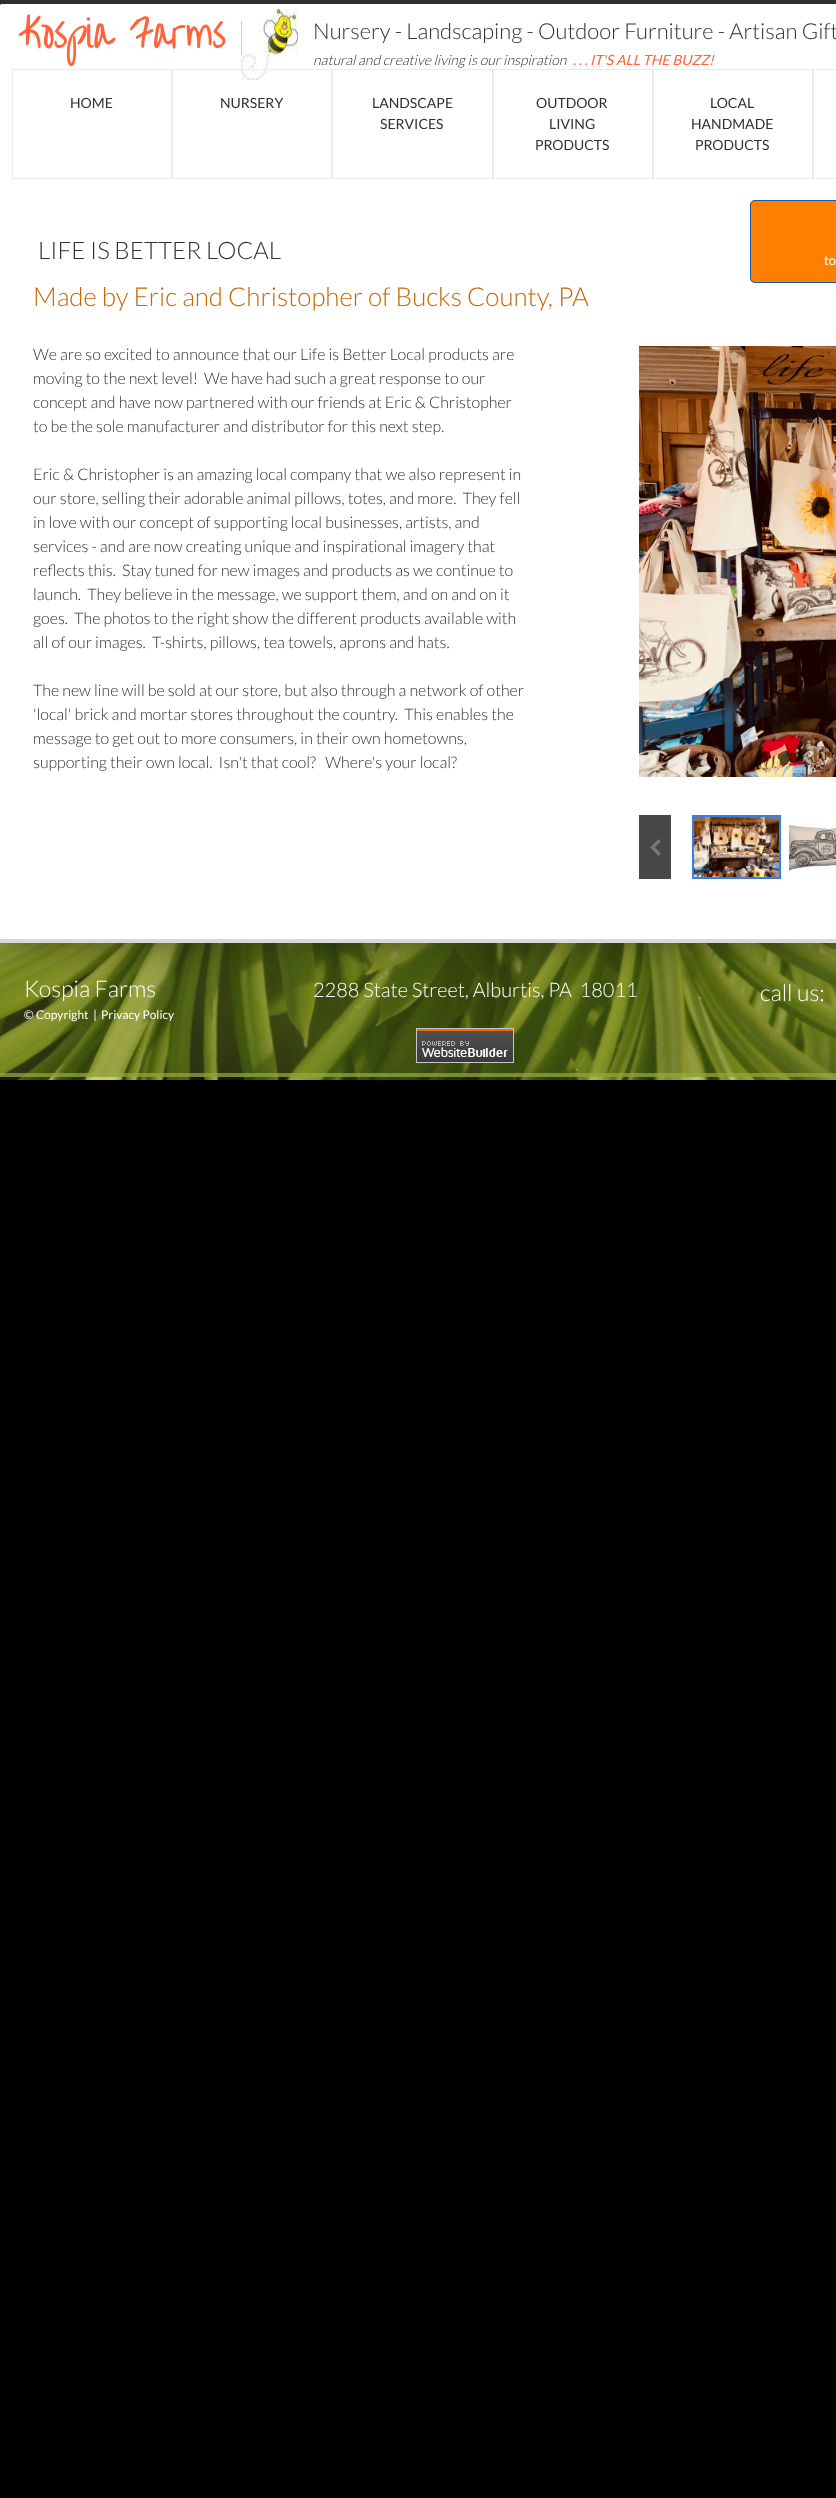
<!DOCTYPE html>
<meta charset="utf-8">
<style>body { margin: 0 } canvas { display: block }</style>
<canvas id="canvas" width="836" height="2498"></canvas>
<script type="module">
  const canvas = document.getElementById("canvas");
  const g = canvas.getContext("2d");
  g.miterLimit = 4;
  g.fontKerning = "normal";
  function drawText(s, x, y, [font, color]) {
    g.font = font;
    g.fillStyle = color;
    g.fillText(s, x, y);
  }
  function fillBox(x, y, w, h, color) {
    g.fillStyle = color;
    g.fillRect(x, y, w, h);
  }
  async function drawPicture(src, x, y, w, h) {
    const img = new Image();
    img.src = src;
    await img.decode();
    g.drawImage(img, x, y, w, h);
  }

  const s1 = ["bold 36px Over the Rainbow", "#FF633C"];
  const s2 = ["300 22px Lato", "#2F2F2F"];
  const s3 = ["italic 300 14px Lato", "#2F2F2F"];
  const s4 = ["italic 14px Lato", "#FF633C"];
  const s5 = ["14px Lato", "#2F2F2F"];
  const s6 = ["300 24px Lato", "#2F2F2F"];
  const s7 = ["13px Lato", "#FFFFFF"];
  const s8 = ["300 26px Lato", "#CC6600"];
  const s9 = ["300 16px Lato", "#2F2F2F"];
  const s10 = ["300 23px Lato", "#FFFFFF"];
  const s11 = ["300 20px Lato", "#FFFFFF"];
  const s12 = ["12px Lato", "#FFFFFF"];

  fillBox(0, 0, 836, 2498, "#000000");
  await drawPicture("pic1.png", 0, 943, 836, 137);
  g.fillStyle = "rgba(0, 0, 0, 0.6)";
  g.filter = "blur(20px)";
  g.beginPath();
  g.rect(0, 0, 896, 943);
  g.fill();
  g.filter = "none";
  fillBox(0, 4, 836, 935, "#FFFFFF");
  fillBox(0, 0, 836, 4, "#2F2F2F");
  fillBox(0, 939, 836, 4, "#D9D9D9");
  fillBox(0, 4, 1, 1, "#A38154");
  drawText("Kospia Farms", 18, 48, s1);
  await drawPicture("pic2.png", 241, 9, 57, 71);
  fillBox(241, 21, 1, 34, "#CCCCCC");
  drawText("Nursery - Landscaping - Outdoor Furniture - Artisan Gift", 313, 39, s2);
  drawText("natural and creative living is our inspiration", 313, 65, s3);
  drawText(". . . IT'S ALL THE BUZZ!", 573, 65, s4);
  g.strokeStyle = "#EBEBEB";
  g.strokeRect(12.5, 69.5, 159, 109);
  drawText("HOME", 70, 108, s5);
  g.strokeRect(172.5, 69.5, 159, 109);
  drawText("NURSERY", 220, 108, s5);
  g.strokeRect(332.5, 69.5, 160, 109);
  drawText("LANDSCAPE", 372, 108, s5);
  drawText("SERVICES", 380, 129, s5);
  g.strokeRect(493.5, 69.5, 159, 109);
  drawText("OUTDOOR", 536, 108, s5);
  drawText("LIVING", 549, 129, s5);
  drawText("PRODUCTS", 535, 150, s5);
  g.strokeRect(653.5, 69.5, 159, 109);
  drawText("LOCAL", 710, 108, s5);
  drawText("HANDMADE", 691, 129, s5);
  drawText("PRODUCTS", 695, 150, s5);
  g.strokeRect(813.5, 69.5, 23, 109);
  drawText("LIFE IS BETTER LOCAL", 38, 259, s6);
  g.fillStyle = "#FF7F00";
  g.beginPath();
  g.roundRect(750, 200, 86, 83, [5, 0, 0, 5]);
  g.fill();
  g.beginPath();
  g.roundRect(750.5, 200.5, 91, 82, 4.5);
  g.strokeStyle = "#125CA6";
  g.stroke();
  drawText("to", 824, 265, s7);
  drawText("Made by Eric and Christopher of Bucks County, PA", 33, 306, s8);
  drawText("We are so excited to announce that our Life is Better Local products are", 33, 360, s9);
  drawText("moving to the next level!  We have had such a great response to our", 33, 384, s9);
  drawText("concept and have now partnered with our friends at Eric & Christopher", 33, 408, s9);
  drawText("to be the sole manufacturer and distributor for this next step.", 33, 432, s9);
  drawText("Eric & Christopher is an amazing local company that we also represent in", 33, 480, s9);
  drawText("our store, selling their adorable animal pillows, totes, and more.  They fell", 33, 504, s9);
  drawText("in love with our concept of supporting local businesses, artists, and", 33, 528, s9);
  drawText("services - and are now creating unique and inspirational imagery that", 33, 552, s9);
  drawText("reflects this.  Stay tuned for new images and products as we continue to", 33, 576, s9);
  drawText("launch.  They believe in the message, we support them, and on and on it", 33, 600, s9);
  drawText("goes.  The photos to the right show the different products available with", 33, 624, s9);
  drawText("all of our images.  T-shirts, pillows, tea towels, aprons and hats.", 33, 648, s9);
  drawText("The new line will be sold at our store, but also through a network of other", 33, 696, s9);
  drawText("'local' brick and mortar stores throughout the country.  This enables the", 33, 720, s9);
  drawText("message to get out to more consumers, in their own hometowns,", 33, 744, s9);
  drawText("supporting their own local.  Isn't that cool?   Where's your local?", 33, 768, s9);
  await drawPicture("pic3.png", 639, 346, 197, 431);
  fillBox(639, 815, 32, 64, "#474747");
  await drawPicture("pic4.png", 650, 839, 11, 17);
  fillBox(692, 815, 89, 64, "#3182E6");
  await drawPicture("pic5.png", 694, 817, 85, 60);
  await drawPicture("pic6.png", 789, 825, 47, 46);
  fillBox(0, 943, 836, 134, "rgba(82, 95, 31, 0.4)");
  fillBox(0, 1073, 836, 4, "rgba(151, 169, 63, 0.7)");
  drawText("Kospia Farms", 24, 997, s10);
  drawText("2288 State Street, Alburtis, PA  18011", 313, 997, s11);
  drawText("call us:", 760, 1001, s10);
  drawText("© Copyright  |", 24, 1019, s12);
  drawText("Privacy Policy", 101, 1019, s12);
  await drawPicture("pic7.png", 416, 1028, 98, 35);
</script>
